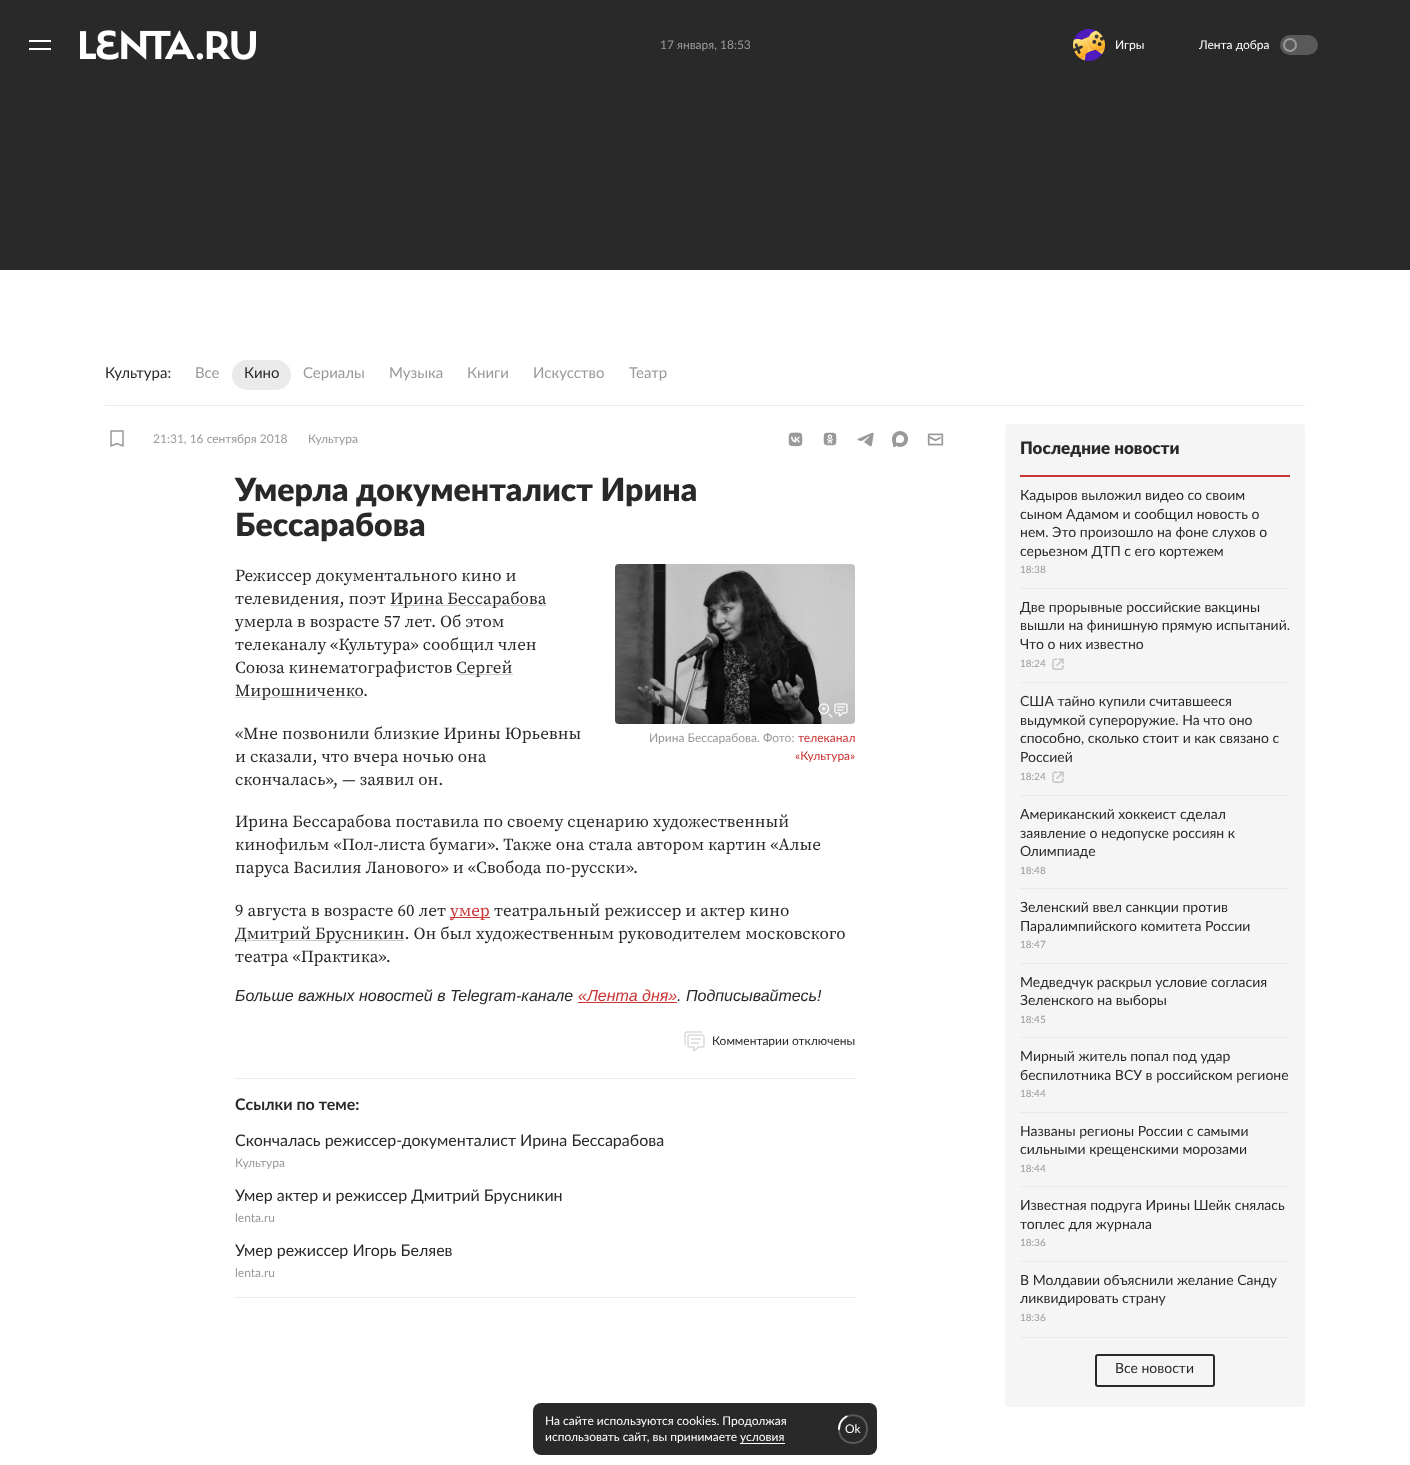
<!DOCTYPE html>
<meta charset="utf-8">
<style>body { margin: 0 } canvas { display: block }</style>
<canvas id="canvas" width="1410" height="1465"></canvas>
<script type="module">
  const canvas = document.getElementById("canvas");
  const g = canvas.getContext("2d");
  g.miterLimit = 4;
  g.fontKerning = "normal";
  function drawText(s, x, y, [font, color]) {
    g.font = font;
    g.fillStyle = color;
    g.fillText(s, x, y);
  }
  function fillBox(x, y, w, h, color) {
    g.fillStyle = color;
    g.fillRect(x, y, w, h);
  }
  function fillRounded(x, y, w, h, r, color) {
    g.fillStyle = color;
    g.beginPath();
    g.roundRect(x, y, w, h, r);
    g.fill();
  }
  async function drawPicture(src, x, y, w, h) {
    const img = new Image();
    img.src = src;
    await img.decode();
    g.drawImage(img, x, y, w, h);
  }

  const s1 = ["12px Lato", "#999999"];
  const s2 = ["12px Lato", "#FFFFFF"];
  const s3 = ["15px Lato", "#292929"];
  const s4 = ["15px Lato", "#999999"];
  const s5 = ["900 32px Lato", "#292929"];
  const s6 = ["17px Source Serif Pro", "#292929"];
  const s7 = ["17px Source Serif Pro", "#CC3333"];
  const s8 = ["italic 16px Liberation Sans", "#292929"];
  const s9 = ["italic 16px Liberation Sans", "#CC3333"];
  const s10 = ["12px Lato", "#CC3333"];
  const s11 = ["12px Lato", "#292929"];
  const s12 = ["bold 16px Lato", "#292929"];
  const s13 = ["16px Lato", "#292929"];
  const s14 = ["900 17px Lato", "#292929"];
  const s15 = ["14px Lato", "#292929"];
  const s16 = ["10px Lato", "#999999"];

  fillBox(0, 0, 1410, 1465, "#FFFFFF");
  fillBox(0, 0, 1410, 270, "#292929");
  fillBox(29, 40, 22, 2, "#FFFFFF");
  fillBox(29, 48, 22, 2, "#FFFFFF");
  await drawPicture("pic1.png", 80, 30, 176, 30);
  drawText("17 января, 18:53", 660, 49, s1);
  await drawPicture("pic2.png", 1073, 29, 32, 32);
  drawText("Игры", 1115, 49, s2);
  drawText("Лента добра", 1199, 49, s2);
  fillRounded(1280, 35, 38, 20, 10, "#595959");
  g.beginPath();
  g.arc(1290, 45, 6, 0, Math.PI * 2);
  g.strokeStyle = "#999999";
  g.lineWidth = 2;
  g.stroke();
  fillBox(105, 405, 1200, 1, "#EAEAEA");
  drawText("Культура:", 105, 378, s3);
  drawText("Все", 195, 378, s4);
  fillRounded(232, 360, 59, 30, 15, "#EAEAEA");
  drawText("Кино", 244, 378, s3);
  drawText("Сериалы", 303, 378, s4);
  drawText("Музыка", 389, 378, s4);
  drawText("Книги", 467, 378, s4);
  drawText("Искусство", 533, 378, s4);
  drawText("Театр", 629, 378, s4);
  g.beginPath();
  g.moveTo(123, 431);
  g.lineTo(111, 431);
  g.lineTo(111, 446);
  g.lineTo(117, 443.5);
  g.lineTo(123, 446);
  g.closePath();
  g.lineWidth = 1.5;
  g.lineCap = "round";
  g.lineJoin = "round";
  g.stroke();
  drawText("21:31, 16 сентября 2018", 153, 443, s1);
  drawText("Культура", 308, 443, s1);
  await drawPicture("pic3.png", 788, 432, 15, 15);
  await drawPicture("pic4.png", 823, 432, 14, 14);
  await drawPicture("pic5.png", 857, 432, 17, 15);
  await drawPicture("pic6.png", 892, 431, 16, 16);
  await drawPicture("pic7.png", 927, 433, 17, 13);
  drawText("Умерла документалист Ирина", 235, 501, s5);
  drawText("Бессарабова", 235, 536, s5);
  drawText("Режиссер документального кино и", 235, 581, s6);
  drawText("телевидения, поэт", 235, 604, s6);
  fillBox(390, 605, 156, 1, "#CBCBCB");
  drawText("Ирина Бессарабова", 390, 604, s6);
  drawText("умерла в возрасте 57 лет. Об этом", 235, 627, s6);
  drawText("телеканалу «Культура» сообщил член", 235, 650, s6);
  drawText("Союза кинематографистов", 235, 673, s6);
  fillBox(456, 674, 57, 1, "#CBCBCB");
  drawText("Сергей", 456, 673, s6);
  fillBox(235, 697, 128, 1, "#CBCBCB");
  drawText("Мирошниченко", 235, 696, s6);
  drawText(".", 363, 696, s6);
  drawText("«Мне позвонили близкие Ирины Юрьевны", 235, 739, s6);
  drawText("и сказали, что вчера ночью она", 235, 762, s6);
  drawText("скончалась», — заявил он.", 235, 785, s6);
  drawText("Ирина Бессарабова поставила по своему сценарию художественный", 235, 827, s6);
  drawText("кинофильм «Пол-листа бумаги». Также она стала автором картин «Алые", 235, 850, s6);
  drawText("паруса Василия Ланового» и «Свобода по-русски».", 235, 873, s6);
  drawText("9 августа в возрасте 60 лет", 235, 916, s6);
  fillBox(450, 917, 40, 1, "#CC3333");
  drawText("умер", 450, 916, s7);
  drawText("театральный режиссер и актер кино", 494, 916, s6);
  fillBox(235, 940, 169, 1, "#CBCBCB");
  drawText("Дмитрий Брусникин. Он был художественным руководителем московского", 235, 939, s6);
  drawText("театра «Практика».", 235, 962, s6);
  drawText("Больше важных новостей в Telegram-канале", 235, 1001, s8);
  drawText("«Лента дня»", 578, 1001, s9);
  fillBox(578, 1002, 99, 1, "#CC3333");
  drawText(". Подписывайтесь!", 677, 1001, s8);
  await drawPicture("pic8.png", 615, 564, 240, 160);
  await drawPicture("pic9.png", 818, 703, 30, 15);
  drawText("Ирина Бессарабова. Фото:", 649, 742, s1);
  drawText("телеканал", 798, 742, s10);
  drawText("«Культура»", 795, 760, s10);
  await drawPicture("pic10.png", 684, 1031, 21, 21);
  drawText("Комментарии отключены", 712, 1045, s11);
  fillBox(235, 1078, 620, 1, "#EAEAEA");
  fillBox(235, 1297, 620, 1, "#EAEAEA");
  drawText("Ссылки по теме:", 235, 1110, s12);
  drawText("Скончалась режиссер-документалист Ирина Бессарабова", 235, 1146, s13);
  drawText("Культура", 235, 1167, s1);
  drawText("Умер актер и режиссер Дмитрий Брусникин", 235, 1201, s13);
  drawText("lenta.ru", 235, 1222, s1);
  drawText("Умер режиссер Игорь Беляев", 235, 1256, s13);
  drawText("lenta.ru", 235, 1277, s1);
  fillRounded(1005, 424, 300, 983, 4, "#F5F5F5");
  fillBox(1020, 475, 270, 2, "#CC3333");
  drawText("Последние новости", 1020, 454, s14);
  fillBox(1020, 1337, 270, 1, "#EAEAEA");
  fillBox(1020, 588, 270, 1, "#EAEAEA");
  drawText("Кадыров выложил видео со своим", 1020, 500, s15);
  drawText("сыном Адамом и сообщил новость о", 1020, 519, s15);
  drawText("нем. Это произошло на фоне слухов о", 1020, 537, s15);
  drawText("серьезном ДТП с его кортежем", 1020, 556, s15);
  drawText("18:38", 1020, 573, s16);
  fillBox(1020, 682, 270, 1, "#EAEAEA");
  drawText("Две прорывные российские вакцины", 1020, 612, s15);
  drawText("вышли на финишную прямую испытаний.", 1020, 630, s15);
  drawText("Что о них известно", 1020, 649, s15);
  drawText("18:24", 1020, 667, s16);
  await drawPicture("pic11.png", 1052, 658, 12, 12);
  fillBox(1020, 795, 270, 1, "#EAEAEA");
  drawText("США тайно купили считавшееся", 1020, 706, s15);
  drawText("выдумкой супероружие. На что оно", 1020, 725, s15);
  drawText("способно, сколько стоит и как связано с", 1020, 743, s15);
  drawText("Россией", 1020, 762, s15);
  drawText("18:24", 1020, 780, s16);
  await drawPicture("pic11.png", 1052, 771, 12, 12);
  fillBox(1020, 888, 270, 1, "#EAEAEA");
  drawText("Американский хоккеист сделал", 1020, 819, s15);
  drawText("заявление о недопуске россиян к", 1020, 838, s15);
  drawText("Олимпиаде", 1020, 856, s15);
  drawText("18:48", 1020, 874, s16);
  fillBox(1020, 963, 270, 1, "#EAEAEA");
  drawText("Зеленский ввел санкции против", 1020, 912, s15);
  drawText("Паралимпийского комитета России", 1020, 931, s15);
  drawText("18:47", 1020, 948, s16);
  fillBox(1020, 1037, 270, 1, "#EAEAEA");
  drawText("Медведчук раскрыл условие согласия", 1020, 987, s15);
  drawText("Зеленского на выборы", 1020, 1005, s15);
  drawText("18:45", 1020, 1023, s16);
  fillBox(1020, 1112, 270, 1, "#EAEAEA");
  drawText("Мирный житель попал под удар", 1020, 1061, s15);
  drawText("беспилотника ВСУ в российском регионе", 1020, 1080, s15);
  drawText("18:44", 1020, 1097, s16);
  fillBox(1020, 1186, 270, 1, "#EAEAEA");
  drawText("Названы регионы России с самыми", 1020, 1136, s15);
  drawText("сильными крещенскими морозами", 1020, 1154, s15);
  drawText("18:44", 1020, 1172, s16);
  fillBox(1020, 1261, 270, 1, "#EAEAEA");
  drawText("Известная подруга Ирины Шейк снялась", 1020, 1210, s15);
  drawText("топлес для журнала", 1020, 1229, s15);
  drawText("18:36", 1020, 1246, s16);
  drawText("В Молдавии объяснили желание Санду", 1020, 1285, s15);
  drawText("ликвидировать страну", 1020, 1303, s15);
  drawText("18:36", 1020, 1321, s16);
  g.beginPath();
  g.roundRect(1096, 1355, 118, 31, 2);
  g.strokeStyle = "#292929";
  g.lineWidth = 2;
  g.lineJoin = "miter";
  g.stroke();
  drawText("Все новости", 1115, 1373, s15);
  fillRounded(533, 1403, 344, 52, 8, "#292929");
  drawText("На сайте используются cookies. Продолжая", 545, 1425, s2);
  drawText("использовать сайт, вы принимаете", 545, 1441, s2);
  fillBox(740, 1443, 45, 1, "#FFFFFF");
  drawText("условия", 740, 1441, s2);
  drawText("Ok", 845, 1433, s2);
  g.beginPath();
  g.moveTo(839, 1429);
  g.bezierCurveTo(839, 1410.5, 867, 1410.5, 867, 1429);
  g.bezierCurveTo(867, 1447.5, 839, 1447.5, 839, 1429);
  g.closePath();
  g.strokeStyle = "#595959";
  g.stroke();
  g.beginPath();
  g.moveTo(839, 1429);
  g.bezierCurveTo(839, 1423.5, 842, 1419, 846.5, 1416.5);
  g.strokeStyle = "#FFFFFF";
  g.stroke();
</script>
